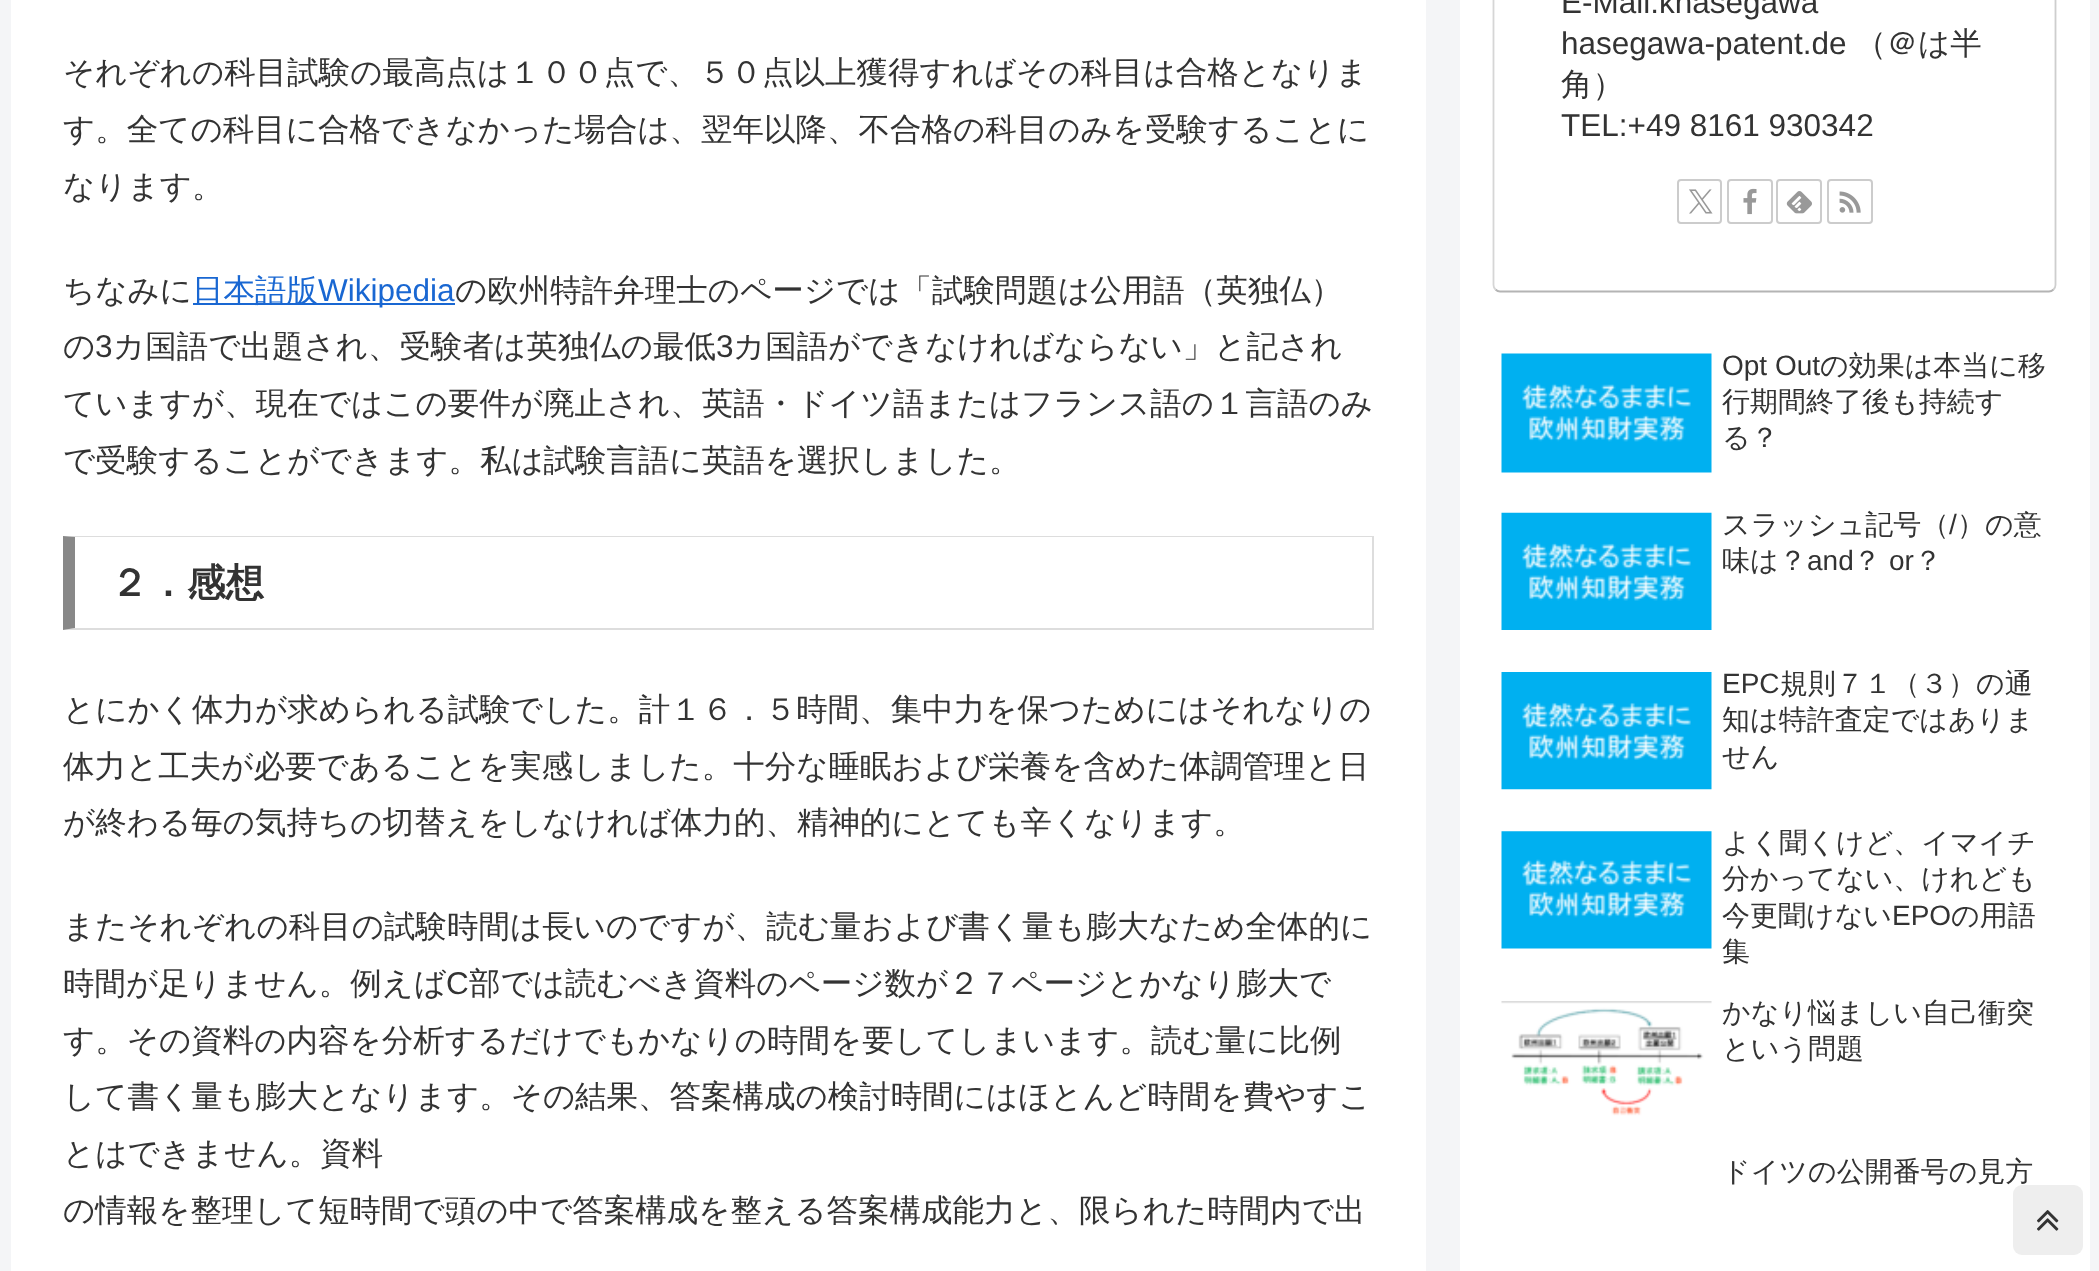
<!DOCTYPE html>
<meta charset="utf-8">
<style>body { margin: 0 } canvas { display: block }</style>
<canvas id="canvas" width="2099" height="1271"></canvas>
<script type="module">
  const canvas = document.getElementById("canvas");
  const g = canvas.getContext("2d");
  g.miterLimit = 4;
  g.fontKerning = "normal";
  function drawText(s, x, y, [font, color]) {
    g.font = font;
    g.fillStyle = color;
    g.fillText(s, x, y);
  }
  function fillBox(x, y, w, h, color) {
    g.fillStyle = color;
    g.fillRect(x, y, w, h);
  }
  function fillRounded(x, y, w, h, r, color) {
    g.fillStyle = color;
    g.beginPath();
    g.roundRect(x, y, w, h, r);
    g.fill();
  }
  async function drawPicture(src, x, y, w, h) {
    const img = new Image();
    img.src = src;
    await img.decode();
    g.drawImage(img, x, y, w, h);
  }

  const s1 = ["500 31.5px WenQuanYi Zen Hei", "#333333"];
  const s2 = ["500 31.5px WenQuanYi Zen Hei", "#1967D2"];
  const s3 = ["31.5px Liberation Sans", "#1967D2"];
  const s4 = ["31.5px Liberation Sans", "#333333"];
  const s5 = ["bold 38.5px WenQuanYi Zen Hei", "#333333"];
  const s6 = ["28px Liberation Sans", "#333333"];
  const s7 = ["500 28px WenQuanYi Zen Hei", "#333333"];

  fillBox(0, 0, 2099, 1271, "#F4F5F7");
  fillBox(11, 0, 1415, 1271, "#FFFFFF");
  drawText("それぞれの科目試験の最高点は１００点で、５０点以上獲得すればその科目は合格となりま", 63, 83, s1);
  drawText("す。全ての科目に合格できなかった場合は、翌年以降、不合格の科目のみを受験することに", 63, 140, s1);
  drawText("なります。", 63, 197, s1);
  drawText("ちなみに", 63, 301, s1);
  fillBox(193, 303, 262, 2, "#1967D2");
  drawText("日本語版", 192, 301, s2);
  drawText("Wikipedia", 318, 301, s3);
  drawText("の欧州特許弁理士のページでは「試験問題は公用語（英独仏）", 455, 301, s1);
  drawText("の", 63, 357, s1);
  drawText("3", 95, 357, s4);
  drawText("カ国語で出題され、受験者は英独仏の最低", 113, 357, s1);
  drawText("3", 716, 357, s4);
  drawText("カ国語ができなければならない」と記され", 733, 357, s1);
  drawText("ていますが、現在ではこの要件が廃止され、英語・ドイツ語またはフランス語の１言語のみ", 63, 414, s1);
  drawText("で受験することができます。私は試験言語に英語を選択しました。", 63, 471, s1);
  g.fillStyle = "#DDDDDD";
  g.beginPath();
  g.moveTo(63, 536);
  g.lineTo(1374, 536);
  g.lineTo(1372, 537);
  g.lineTo(75, 537);
  g.closePath();
  g.fill();
  fillBox(1372, 536, 2, 94, "#DDDDDD");
  g.beginPath();
  g.moveTo(1374, 630);
  g.lineTo(63, 630);
  g.lineTo(75, 628);
  g.lineTo(1372, 628);
  g.closePath();
  g.fill();
  g.fillStyle = "#888888";
  g.beginPath();
  g.moveTo(63, 630);
  g.lineTo(63, 536);
  g.lineTo(75, 537);
  g.lineTo(75, 628);
  g.closePath();
  g.fill();
  drawText("２．感想", 110, 596, s5);
  drawText("とにかく体力が求められる試験でした。計１６．５時間、集中力を保つためにはそれなりの", 63, 720, s1);
  drawText("体力と工夫が必要であることを実感しました。十分な睡眠および栄養を含めた体調管理と日", 63, 777, s1);
  drawText("が終わる毎の気持ちの切替えをしなければ体力的、精神的にとても辛くなります。", 63, 833, s1);
  drawText("またそれぞれの科目の試験時間は長いのですが、読む量および書く量も膨大なため全体的に", 63, 937, s1);
  drawText("時間が足りません。例えば", 63, 994, s1);
  drawText("C", 446, 994, s4);
  drawText("部では読むべき資料のページ数が２７ページとかなり膨大で", 469, 994, s1);
  drawText("す。その資料の内容を分析するだけでもかなりの時間を要してしまいます。読む量に比例", 63, 1051, s1);
  drawText("して書く量も膨大となります。その結果、答案構成の検討時間にはほとんど時間を費やすこ", 63, 1107, s1);
  drawText("とはできません。資料", 63, 1164, s1);
  drawText("の情報を整理して短時間で頭の中で答案構成を整える答案構成能力と、限られた時間内で出", 63, 1221, s1);
  fillBox(1460, 0, 630, 1271, "#FFFFFF");
  g.beginPath();
  g.moveTo(2053.5, -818);
  g.bezierCurveTo(2054.5, -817, 2055.5, -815.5, 2055.5, -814);
  g.lineTo(2055.5, 285);
  g.bezierCurveTo(2055.5, 287, 2054.5, 288.5, 2053.5, 289.5);
  g.strokeStyle = "#CECECE";
  g.lineWidth = 1.8;
  g.stroke();
  g.beginPath();
  g.moveTo(2053.5, 289.5);
  g.bezierCurveTo(2052.5, 290.5, 2051, 291.5, 2049, 291.5);
  g.lineTo(1500, 291.5);
  g.bezierCurveTo(1498, 291.5, 1496.5, 290.5, 1495.5, 289.5);
  g.strokeStyle = "#B4B4B4";
  g.stroke();
  g.beginPath();
  g.moveTo(1495.5, 289.5);
  g.bezierCurveTo(1494.5, 288.5, 1493.5, 287, 1493.5, 285);
  g.lineTo(1493.5, -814);
  g.bezierCurveTo(1493.5, -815.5, 1494.5, -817, 1495.5, -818);
  g.strokeStyle = "#D6D6D6";
  g.stroke();
  drawText("E-Mail:khasegawa", 1561, 13, s4);
  drawText("hasegawa-patent.de", 1561, 54, s4);
  drawText("（＠は半", 1855, 54, s1);
  drawText("角）", 1561, 95, s1);
  drawText("TEL:+49 8161 930342", 1561, 136, s4);
  g.beginPath();
  g.roundRect(1678, 180, 43, 43, 3);
  g.strokeStyle = "#CCCCCC";
  g.lineWidth = 2;
  g.stroke();
  await drawPicture("pic1.png", 1689, 189, 24, 25);
  g.beginPath();
  g.roundRect(1728, 180, 44, 43, 3);
  g.stroke();
  await drawPicture("pic2.png", 1743, 188, 14, 27);
  g.beginPath();
  g.roundRect(1777, 180, 44, 43, 3);
  g.stroke();
  await drawPicture("pic3.png", 1786, 191, 26, 23);
  g.beginPath();
  g.roundRect(1828, 180, 44, 43, 3);
  g.stroke();
  await drawPicture("pic4.png", 1839, 191, 22, 22);
  await drawPicture("pic5.png", 1501, 353, 211, 120);
  drawText("Opt Out", 1722, 375, s6);
  drawText("の効果は本当に移", 1820, 375, s7);
  drawText("行期間終了後も持続す", 1722, 411, s7);
  drawText("る？", 1722, 447, s7);
  await drawPicture("pic6.png", 1501, 512, 211, 118);
  drawText("スラッシュ記号（", 1722, 534, s7);
  drawText("/", 1949, 534, s6);
  drawText("）の意", 1957, 534, s7);
  drawText("味は？", 1722, 570, s7);
  drawText("and", 1807, 570, s6);
  drawText("？", 1853, 570, s7);
  drawText("or", 1889, 570, s6);
  drawText("？", 1914, 570, s7);
  await drawPicture("pic7.png", 1501, 672, 211, 118);
  drawText("EPC", 1722, 693, s6);
  drawText("規則７１（３）の通", 1780, 693, s7);
  drawText("知は特許査定ではありま", 1722, 729, s7);
  drawText("せん", 1722, 766, s7);
  await drawPicture("pic8.png", 1501, 831, 211, 118);
  drawText("よく聞くけど、イマイチ", 1722, 852, s7);
  drawText("分かってない、けれども", 1722, 888, s7);
  drawText("今更聞けない", 1722, 925, s7);
  drawText("EPO", 1892, 925, s6);
  drawText("の用語", 1951, 925, s7);
  drawText("集", 1722, 961, s7);
  await drawPicture("pic9.png", 1501, 1001, 211, 115);
  drawText("かなり悩ましい自己衝突", 1722, 1022, s7);
  drawText("という問題", 1722, 1058, s7);
  drawText("ドイツの公開番号の見方", 1722, 1181, s7);
  fillRounded(2013, 1185, 70, 70, 9, "#EEEEEE");
  await drawPicture("pic10.png", 2037, 1210, 22, 21);
</script>
